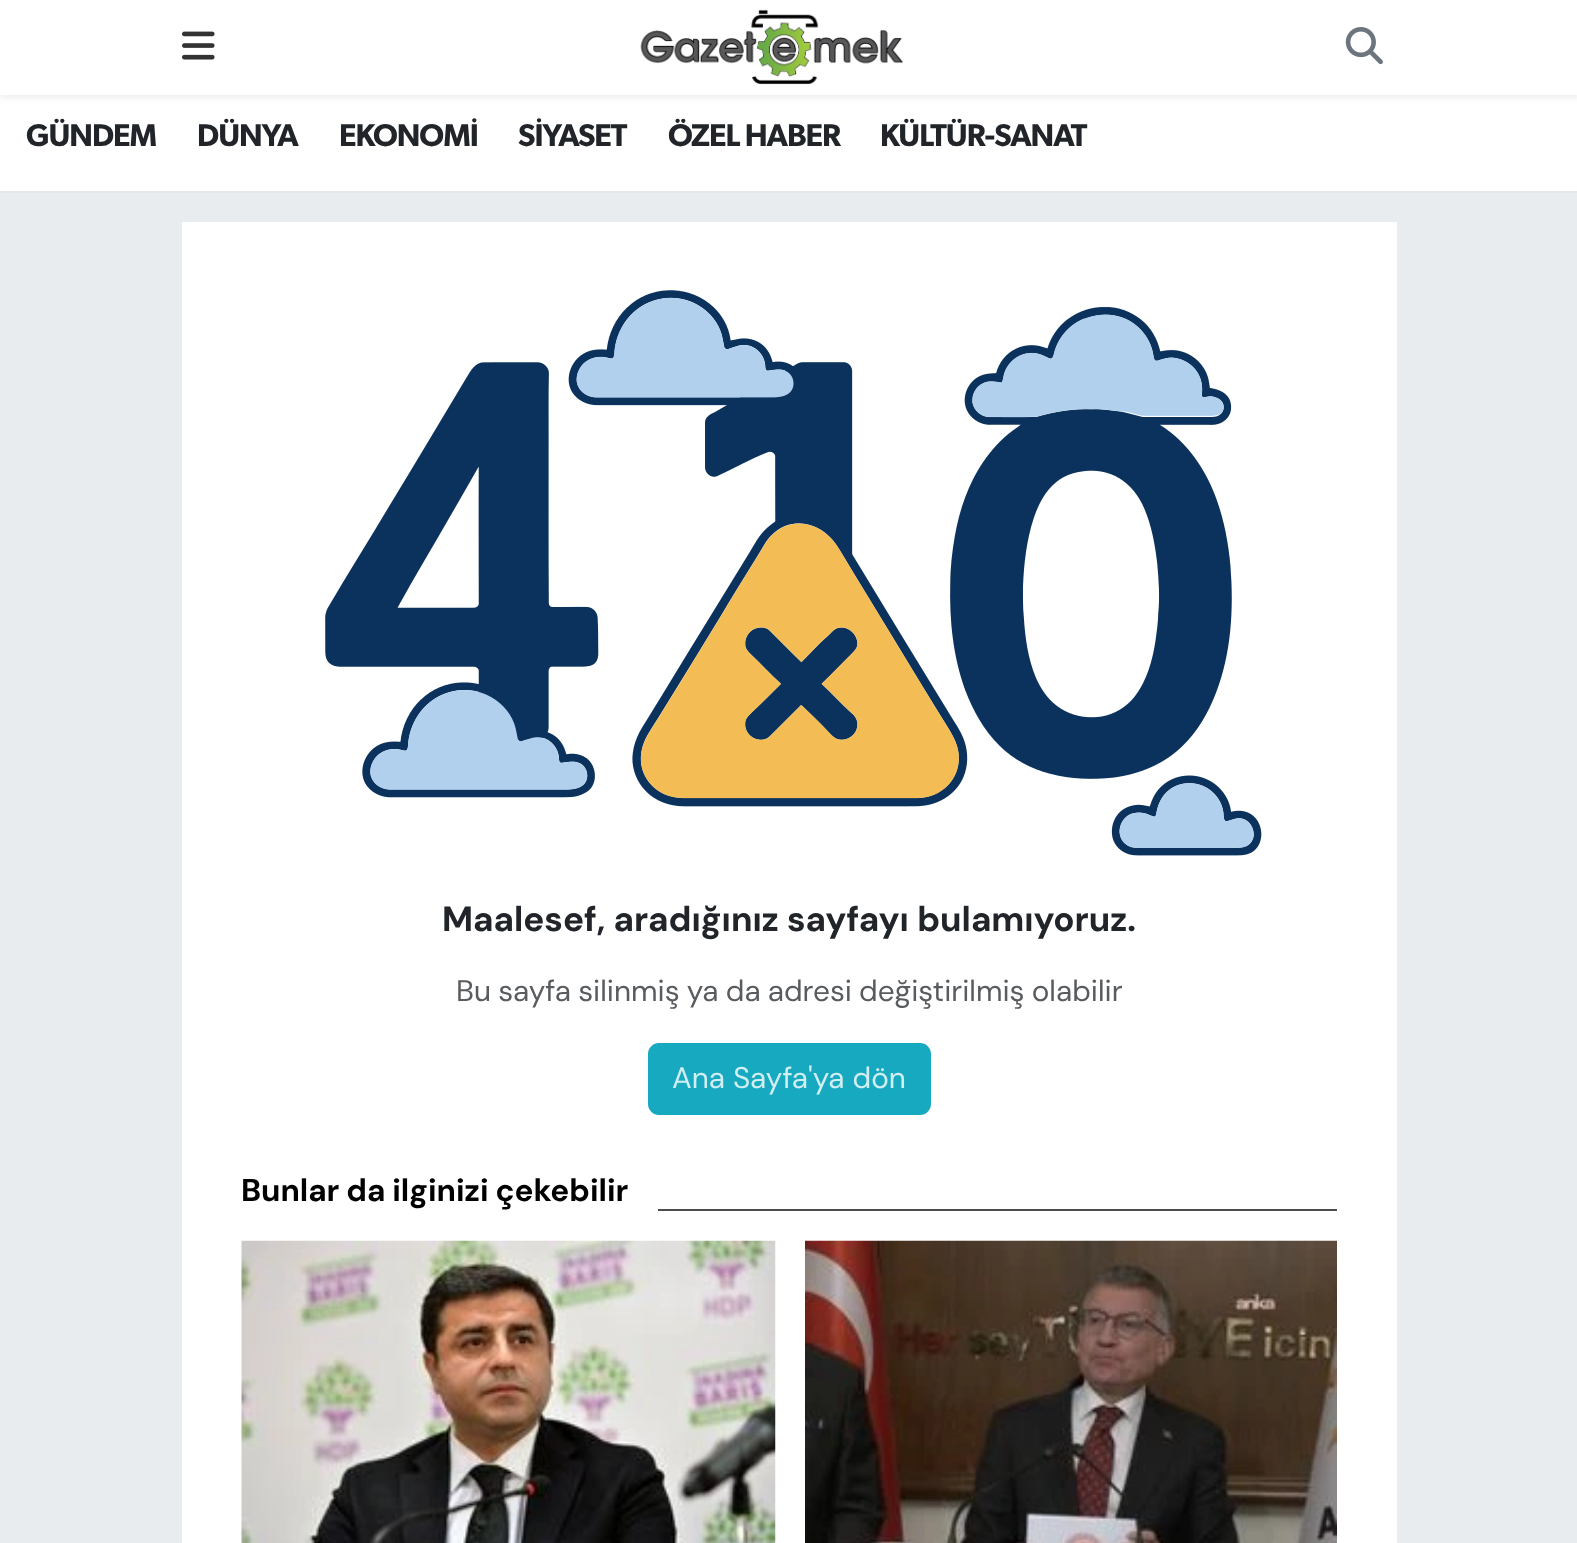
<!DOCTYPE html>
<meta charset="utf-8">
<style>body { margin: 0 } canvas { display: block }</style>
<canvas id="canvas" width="1577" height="1543"></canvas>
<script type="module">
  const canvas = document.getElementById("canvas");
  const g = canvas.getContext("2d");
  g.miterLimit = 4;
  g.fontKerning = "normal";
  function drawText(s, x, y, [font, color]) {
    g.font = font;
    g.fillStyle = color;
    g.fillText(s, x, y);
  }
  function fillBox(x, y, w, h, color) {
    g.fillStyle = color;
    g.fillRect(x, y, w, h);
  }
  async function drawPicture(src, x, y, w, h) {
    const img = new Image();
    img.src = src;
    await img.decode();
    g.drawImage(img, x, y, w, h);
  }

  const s1 = ["600 31.5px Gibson", "#212529"];
  const s2 = ["bold 35px DM Sans", "#212529"];
  const s3 = ["29.75px DM Sans", "#595C5F"];
  const s4 = ["29.75px DM Sans", "#D1EEF2"];
  const s5 = ["bold 31.5px 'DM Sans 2'", "#000000"];

  fillBox(0, 0, 1577, 1543, "#E9ECEF");
  fillBox(0, 95, 1577, 96, "#FFFFFF");
  g.fillStyle = "rgba(0, 0, 0, 0.07)";
  g.filter = "blur(3.5px)";
  g.beginPath();
  g.rect(0, 4, 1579, 94);
  g.fill();
  g.filter = "none";
  fillBox(0, 0, 1577, 95, "#FFFFFF");
  await drawPicture("pic1.png", 182, 31, 33, 29);
  await drawPicture("pic2.png", 640, 9, 263, 76);
  await drawPicture("pic3.png", 1345, 27, 38, 38);
  fillBox(0, 191, 1577, 2, "#E6E6E6");
  g.letterSpacing = "-1px";
  drawText("GÜNDEM", 26, 146, s1);
  drawText("DÜNYA", 197, 146, s1);
  drawText("EKONOMİ", 339, 146, s1);
  drawText("SİYASET", 518, 146, s1);
  drawText("ÖZEL HABER", 668, 146, s1);
  drawText("KÜLTÜR-SANAT", 880, 146, s1);
  fillBox(182, 222, 1215, 1321, "#FFFFFF");
  await drawPicture("pic4.png", 325, 290, 937, 566);
  g.letterSpacing = "0px";
  drawText("Maalesef, aradığınız sayfayı bulamıyoruz.", 442, 931, s2);
  g.wordSpacing = "-0.75px";
  drawText("Bu sayfa silinmiş ya da adresi değiştirilmiş olabilir", 456, 1001, s3);
  g.fillStyle = "#17A9C0";
  g.beginPath();
  g.roundRect(649, 1044, 281, 70, 10);
  g.fill();
  g.strokeStyle = "#17A9C0";
  g.lineWidth = 2;
  g.stroke();
  g.wordSpacing = "0px";
  drawText("Ana Sayfa'ya dön", 672, 1088, s4);
  g.wordSpacing = "-0.5px";
  drawText("Bunlar da ilginizi çekebilir", 241, 1201, s5);
  fillBox(658, 1209, 679, 2, "#4D4D4D");
  await drawPicture("pic5.png", 241, 1240, 535, 303);
  await drawPicture("pic6.png", 805, 1240, 532, 303);
</script>
